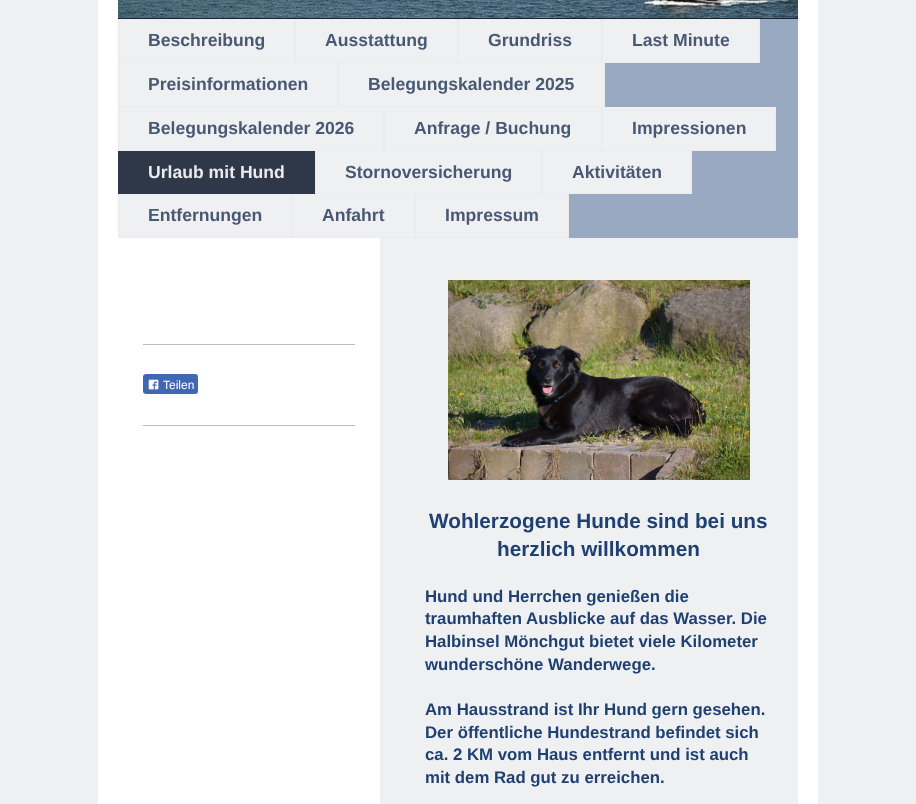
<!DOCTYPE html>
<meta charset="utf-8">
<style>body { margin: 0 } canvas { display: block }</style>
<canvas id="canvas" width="916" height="804"></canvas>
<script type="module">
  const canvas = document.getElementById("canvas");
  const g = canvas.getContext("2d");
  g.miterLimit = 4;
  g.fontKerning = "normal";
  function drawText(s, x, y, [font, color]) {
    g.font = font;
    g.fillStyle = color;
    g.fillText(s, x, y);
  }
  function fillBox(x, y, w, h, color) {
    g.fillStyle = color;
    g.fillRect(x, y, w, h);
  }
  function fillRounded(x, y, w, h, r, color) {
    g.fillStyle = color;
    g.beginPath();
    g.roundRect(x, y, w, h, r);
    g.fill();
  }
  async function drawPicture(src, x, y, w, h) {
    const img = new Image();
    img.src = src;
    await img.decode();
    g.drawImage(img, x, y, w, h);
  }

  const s1 = ["bold 17.6px Liberation Sans", "#495873"];
  const s2 = ["bold 17.6px Liberation Sans", "#EAEBED"];
  const s3 = ["12px Liberation Sans", "#FFFFFF"];
  const s4 = ["bold 20.75px Liberation Sans", "#1F4072"];
  const s5 = ["bold 16.8px Liberation Sans", "#1F4072"];

  fillBox(0, 0, 916, 804, "#EFF0F1");
  fillBox(98, 0, 720, 804, "#FFFFFF");
  await drawPicture("pic1.png", 118, 0, 680, 18);
  fillBox(569, 19, 229, 219, "#9AA9C2");
  fillBox(118, 18, 680, 1, "#1E232B");
  fillBox(118, 19, 642, 44, "#EAEBED");
  fillBox(119, 19, 175, 43, "#EFF0F1");
  drawText("Beschreibung", 148, 46, s1);
  fillBox(296, 19, 161, 43, "#EFF0F1");
  drawText("Ausstattung", 325, 46, s1);
  fillBox(459, 19, 142, 43, "#EFF0F1");
  drawText("Grundriss", 488, 46, s1);
  fillBox(603, 19, 156, 43, "#EFF0F1");
  drawText("Last Minute", 632, 46, s1);
  fillBox(118, 63, 487, 44, "#EAEBED");
  fillBox(119, 63, 218, 43, "#EFF0F1");
  drawText("Preisinformationen", 148, 90, s1);
  fillBox(339, 63, 265, 43, "#EFF0F1");
  drawText("Belegungskalender 2025", 368, 90, s1);
  fillBox(118, 107, 658, 44, "#EAEBED");
  fillBox(119, 107, 264, 43, "#EFF0F1");
  drawText("Belegungskalender 2026", 148, 134, s1);
  fillBox(385, 107, 216, 43, "#EFF0F1");
  drawText("Anfrage / Buchung", 414, 134, s1);
  fillBox(603, 107, 172, 43, "#EFF0F1");
  drawText("Impressionen", 632, 134, s1);
  fillBox(118, 151, 197, 43, "#2F3848");
  drawText("Urlaub mit Hund", 148, 178, s2);
  fillBox(315, 151, 377, 43, "#EAEBED");
  fillBox(316, 151, 225, 42, "#EFF0F1");
  drawText("Stornoversicherung", 345, 178, s1);
  fillBox(543, 151, 148, 42, "#EFF0F1");
  drawText("Aktivitäten", 572, 178, s1);
  fillBox(118, 194, 451, 44, "#EAEBED");
  fillBox(119, 194, 172, 43, "#EFF0F1");
  drawText("Entfernungen", 148, 221, s1);
  fillBox(293, 194, 121, 43, "#EFF0F1");
  drawText("Anfahrt", 322, 221, s1);
  fillBox(416, 194, 152, 43, "#EFF0F1");
  drawText("Impressum", 445, 221, s1);
  fillBox(380, 238, 418, 566, "#EFF0F1");
  fillBox(143, 344, 212, 1, "#BABABA");
  fillRounded(143, 374, 55, 20, 3, "#4267B2");
  await drawPicture("pic2.png", 148, 379, 11, 11);
  drawText("Teilen", 163, 389, s3);
  fillBox(143, 425, 212, 1, "#BABABA");
  await drawPicture("pic3.png", 448, 280, 302, 200);
  drawText("Wohlerzogene Hunde sind bei uns", 429, 528, s4);
  drawText("herzlich willkommen", 497, 556, s4);
  drawText("Hund und Herrchen genießen die", 425, 602, s5);
  drawText("traumhaften Ausblicke auf das Wasser. Die", 425, 624, s5);
  drawText("Halbinsel Mönchgut bietet viele Kilometer", 425, 647, s5);
  drawText("wunderschöne Wanderwege.", 425, 670, s5);
  drawText("Am Hausstrand ist Ihr Hund gern gesehen.", 425, 715, s5);
  drawText("Der öffentliche Hundestrand befindet sich", 425, 738, s5);
  drawText("ca. 2 KM vom Haus entfernt und ist auch", 425, 760, s5);
  drawText("mit dem Rad gut zu erreichen.", 425, 783, s5);
</script>
